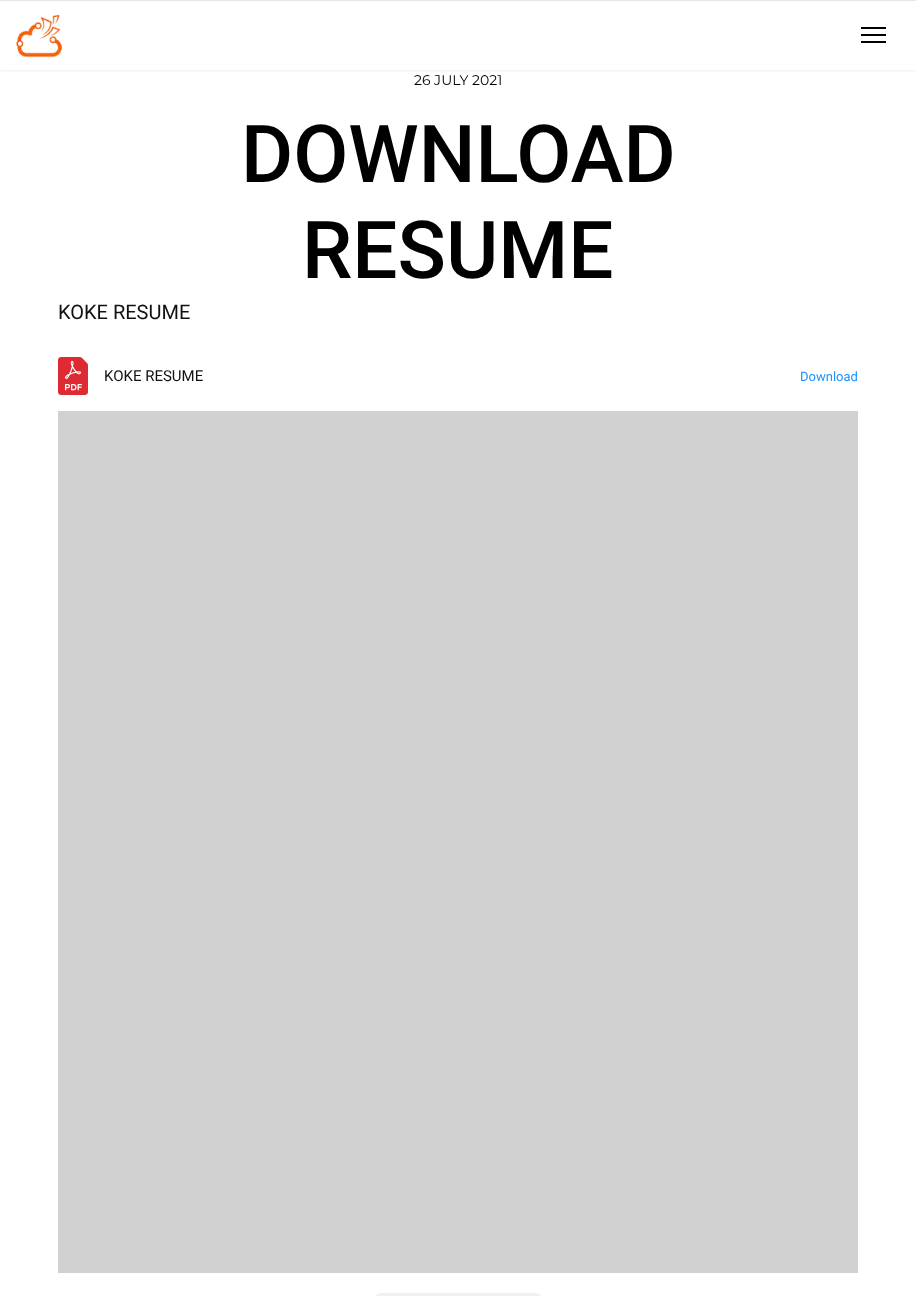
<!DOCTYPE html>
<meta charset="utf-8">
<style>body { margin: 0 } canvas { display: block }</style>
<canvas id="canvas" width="916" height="1296"></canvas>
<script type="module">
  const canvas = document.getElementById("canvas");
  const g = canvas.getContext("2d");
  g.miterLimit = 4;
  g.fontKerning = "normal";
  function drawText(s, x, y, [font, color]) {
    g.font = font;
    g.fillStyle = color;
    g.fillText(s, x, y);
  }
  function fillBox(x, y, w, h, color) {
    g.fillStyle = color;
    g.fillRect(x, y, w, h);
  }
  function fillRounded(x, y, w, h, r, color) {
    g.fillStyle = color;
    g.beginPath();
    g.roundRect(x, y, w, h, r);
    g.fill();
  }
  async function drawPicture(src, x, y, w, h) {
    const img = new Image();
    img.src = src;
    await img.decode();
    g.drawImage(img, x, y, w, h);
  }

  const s1 = ["14px Montserrat", "#000000"];
  const s2 = ["500 80px Roboto", "#000000"];
  const s3 = ["20px Roboto", "#111111"];
  const s4 = ["15px Roboto", "#111111"];
  const s5 = ["13px Roboto", "#1C91FF"];

  fillBox(0, 0, 916, 1296, "#FFFFFF");
  g.save();
  g.beginPath();
  g.rect(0, 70, 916, 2);
  g.clip();
  g.fillStyle = "rgba(0, 0, 0, 0.1)";
  g.filter = "blur(2px)";
  g.beginPath();
  g.rect(0, 0, 916, 70);
  g.fill();
  g.filter = "none";
  g.restore();
  fillBox(0, 0, 916, 1, "#E6E6E6");
  await drawPicture("pic1.png", 16, 14, 47, 44);
  fillBox(861, 27, 25, 2, "#000000");
  fillBox(861, 34, 25, 2, "#000000");
  fillBox(861, 41, 25, 2, "#000000");
  drawText("26 JULY 2021", 414, 85, s1);
  drawText("DOWNLOAD", 241, 182, s2);
  drawText("RESUME", 302, 278, s2);
  drawText("KOKE RESUME", 58, 319, s3);
  await drawPicture("pic2.png", 58, 357, 30, 38);
  drawText("KOKE RESUME", 104, 381, s4);
  drawText("Download", 800, 381, s5);
  fillBox(58, 411, 800, 862, "#D1D1D1");
  fillRounded(374, 1293, 169, 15, 12, "#F0F0F0");
</script>
